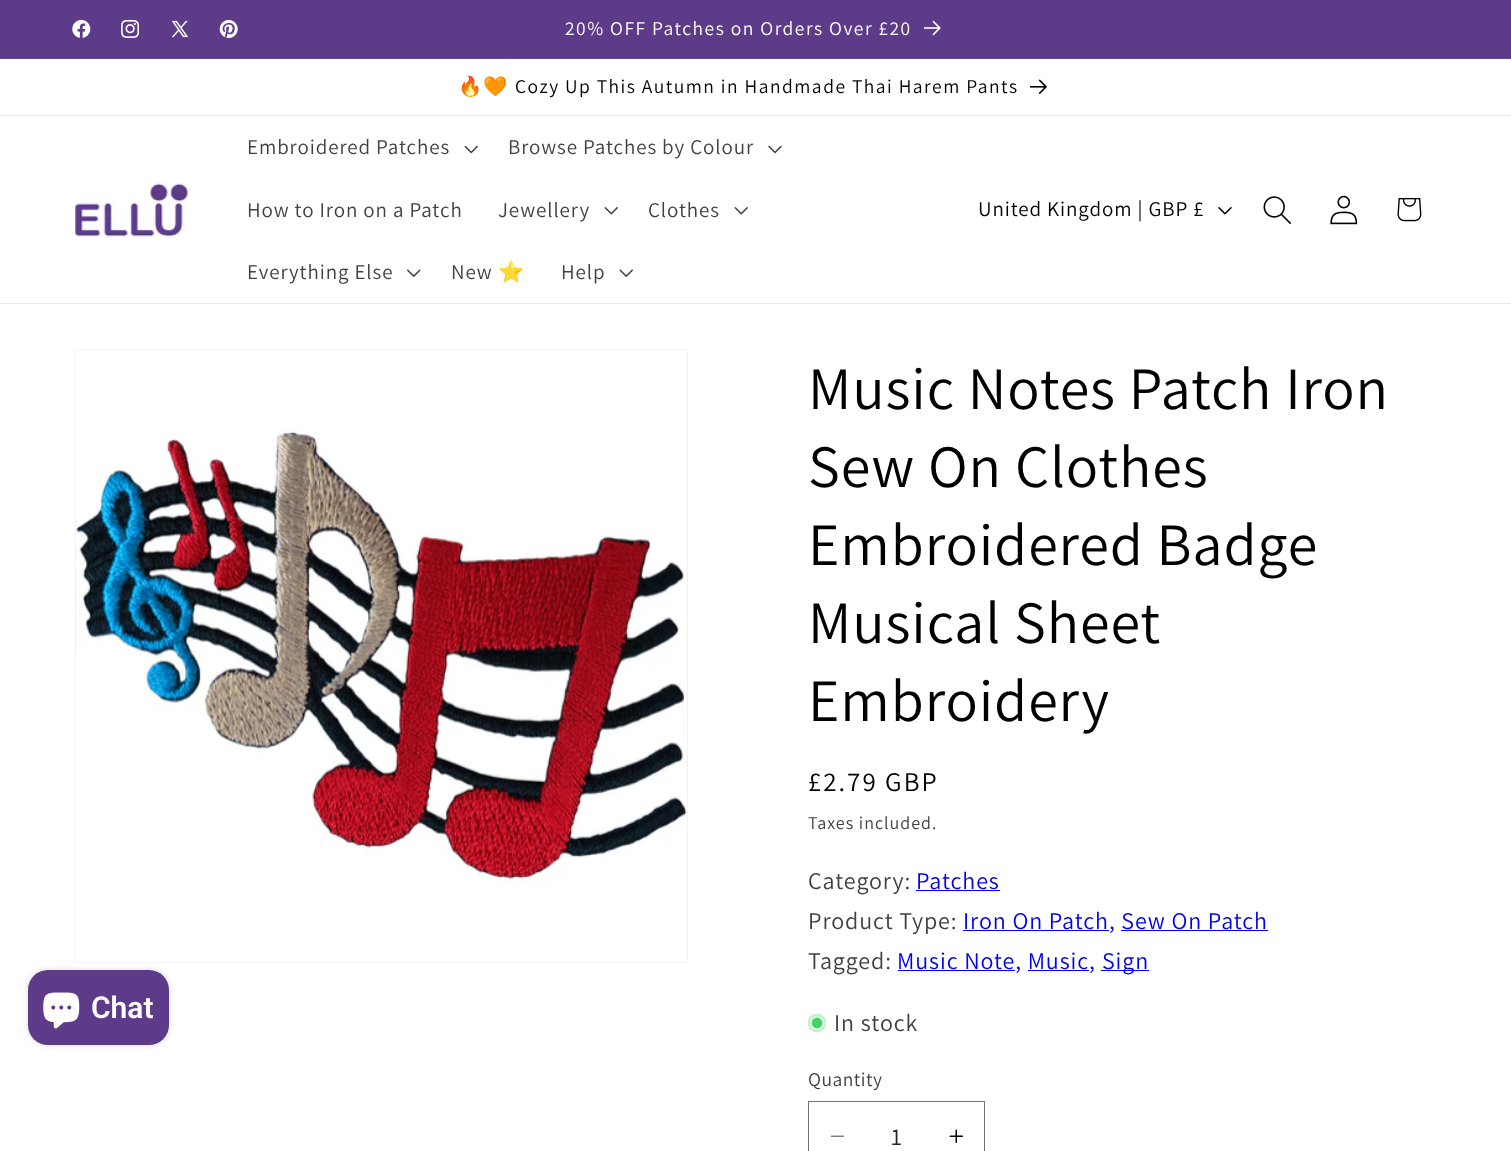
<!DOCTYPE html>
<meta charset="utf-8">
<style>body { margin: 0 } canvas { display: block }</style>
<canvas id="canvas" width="1511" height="1151"></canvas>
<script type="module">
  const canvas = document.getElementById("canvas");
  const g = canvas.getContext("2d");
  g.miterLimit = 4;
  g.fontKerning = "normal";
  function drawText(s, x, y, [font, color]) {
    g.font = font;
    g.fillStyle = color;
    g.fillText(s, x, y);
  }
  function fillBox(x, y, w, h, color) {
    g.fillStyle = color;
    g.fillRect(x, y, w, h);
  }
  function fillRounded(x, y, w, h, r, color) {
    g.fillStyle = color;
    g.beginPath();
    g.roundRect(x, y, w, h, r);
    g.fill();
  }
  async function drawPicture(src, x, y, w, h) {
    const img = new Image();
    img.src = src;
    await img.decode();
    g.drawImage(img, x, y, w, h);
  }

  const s1 = ["19.5px Assistant", "#FFFFFF"];
  const s2 = ["19.5px Noto Color Emoji", "#000000"];
  const s3 = ["19.5px Assistant", "#000000"];
  const s4 = ["21px Assistant", "#404040"];
  const s5 = ["21px Noto Color Emoji", "#404040"];
  const s6 = ["21px Assistant", "#000000"];
  const s7 = ["600 30px Roboto", "#FFFFFF"];
  const s8 = ["60px Assistant", "#000000"];
  const s9 = ["27px Assistant", "#000000"];
  const s10 = ["18px Assistant", "#404040"];
  const s11 = ["24px Assistant", "#404040"];
  const s12 = ["24px Assistant", "#0000EE"];
  const s13 = ["19.5px Assistant", "#404040"];
  const s14 = ["24px Assistant", "#262626"];

  fillBox(0, 0, 1511, 1151, "#FFFFFF");
  fillBox(0, 0, 1511, 58, "#5D3B89");
  fillBox(0, 58, 1511, 1, "#6A4B92");
  await drawPicture("pic1.png", 72, 19, 19, 19);
  await drawPicture("pic2.png", 121, 19, 19, 19);
  await drawPicture("pic3.png", 171, 20, 18, 18);
  await drawPicture("pic4.png", 219, 19, 19, 19);
  g.letterSpacing = "1.5px";
  drawText("20% OFF Patches on Orders Over £20", 565, 35, s1);
  await drawPicture("pic5.png", 924, 20, 17, 16);
  fillBox(0, 115, 1511, 1, "#EBEBEB");
  drawText("🔥🧡", 458, 93, s2);
  drawText("Cozy Up This Autumn in Handmade Thai Harem Pants", 515, 93, s3);
  await drawPicture("pic6.png", 1030, 79, 17, 15);
  fillBox(0, 303, 1511, 1, "#EBEBEB");
  await drawPicture("pic7.png", 75, 183, 113, 54);
  g.letterSpacing = "0.9px";
  drawText("Embroidered Patches", 247, 154, s4);
  await drawPicture("pic8.png", 464, 145, 14, 9);
  drawText("Browse Patches by Colour", 508, 154, s4);
  await drawPicture("pic9.png", 768, 145, 14, 9);
  drawText("How to Iron on a Patch", 247, 217, s4);
  drawText("Jewellery", 498, 217, s4);
  await drawPicture("pic10.png", 604, 207, 14, 8);
  drawText("Clothes", 648, 217, s4);
  await drawPicture("pic10.png", 734, 207, 14, 8);
  drawText("Everything Else", 247, 279, s4);
  await drawPicture("pic11.png", 407, 269, 14, 8);
  drawText("New", 451, 279, s4);
  drawText("⭐", 498, 279, s5);
  drawText("Help", 561, 279, s4);
  await drawPicture("pic12.png", 619, 269, 14, 8);
  drawText("United Kingdom | GBP £", 978, 216, s6);
  await drawPicture("pic13.png", 1218, 207, 14, 8);
  await drawPicture("pic14.png", 1263, 196, 28, 28);
  await drawPicture("pic15.png", 1330, 195, 28, 30);
  await drawPicture("pic16.png", 1397, 198, 25, 24);
  g.strokeStyle = "#F2F2F2";
  g.strokeRect(75.5, 349.5, 612, 613);
  g.fillStyle = "rgba(0, 0, 0, 0.15)";
  g.filter = "blur(3px)";
  g.beginPath();
  g.roundRect(28, 970, 141, 75, 20);
  g.fill();
  g.filter = "none";
  fillRounded(28, 970, 141, 75, 20, "#5D3B89");
  await drawPicture("pic17.png", 43, 992, 37, 37);
  g.letterSpacing = "0px";
  drawText("Chat", 91, 1018, s7);
  await drawPicture("pic18.png", 76, 429, 611, 457);
  g.letterSpacing = "0.9px";
  drawText("Music Notes Patch Iron", 808, 409, s8);
  drawText("Sew On Clothes", 808, 487, s8);
  drawText("Embroidered Badge", 808, 565, s8);
  drawText("Musical Sheet", 808, 643, s8);
  drawText("Embroidery", 808, 721, s8);
  g.letterSpacing = "2px";
  drawText("£2.79 GBP", 808, 791, s9);
  g.letterSpacing = "1px";
  drawText("Taxes included.", 808, 829, s10);
  g.letterSpacing = "0.9px";
  drawText("Category:", 808, 889, s11);
  drawText("Patches", 916, 889, s12);
  fillBox(916, 890, 84, 1, "#0000EE");
  drawText("Product Type:", 808, 929, s11);
  fillBox(963, 930, 146, 1, "#0000EE");
  drawText("Iron On Patch, Sew On Patch", 963, 929, s12);
  fillBox(1121, 930, 147, 1, "#0000EE");
  drawText("Tagged:", 808, 969, s11);
  fillBox(898, 970, 117, 1, "#0000EE");
  drawText("Music Note, Music,", 897, 969, s12);
  fillBox(1028, 970, 61, 1, "#0000EE");
  fillBox(1101, 970, 48, 1, "#0000EE");
  drawText("Sign", 1102, 969, s12);
  g.save();
  g.beginPath();
  g.rect(808, 1014, 18, 19);
  g.clip();
  g.fillStyle = "#C5F3CF";
  g.beginPath();
  g.arc(817, 1023, 9.5, 0, Math.PI * 2);
  g.fill();
  g.restore();
  g.fillStyle = "#3ED660";
  g.beginPath();
  g.arc(817, 1023, 6, 0, Math.PI * 2);
  g.fill();
  g.strokeStyle = "#FFFFFF";
  g.lineWidth = 1.2;
  g.stroke();
  drawText("In stock", 834, 1031, s11);
  g.letterSpacing = "0.5px";
  drawText("Quantity", 808, 1086, s13);
  await drawPicture("pic19.png", 830, 1135, 15, 2);
  await drawPicture("pic20.png", 949, 1129, 14, 14);
  g.strokeStyle = "#737373";
  g.lineWidth = 1;
  g.strokeRect(808.5, 1101.5, 176, 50);
  g.letterSpacing = "0px";
  drawText("1", 891, 1145, s14);
</script>
